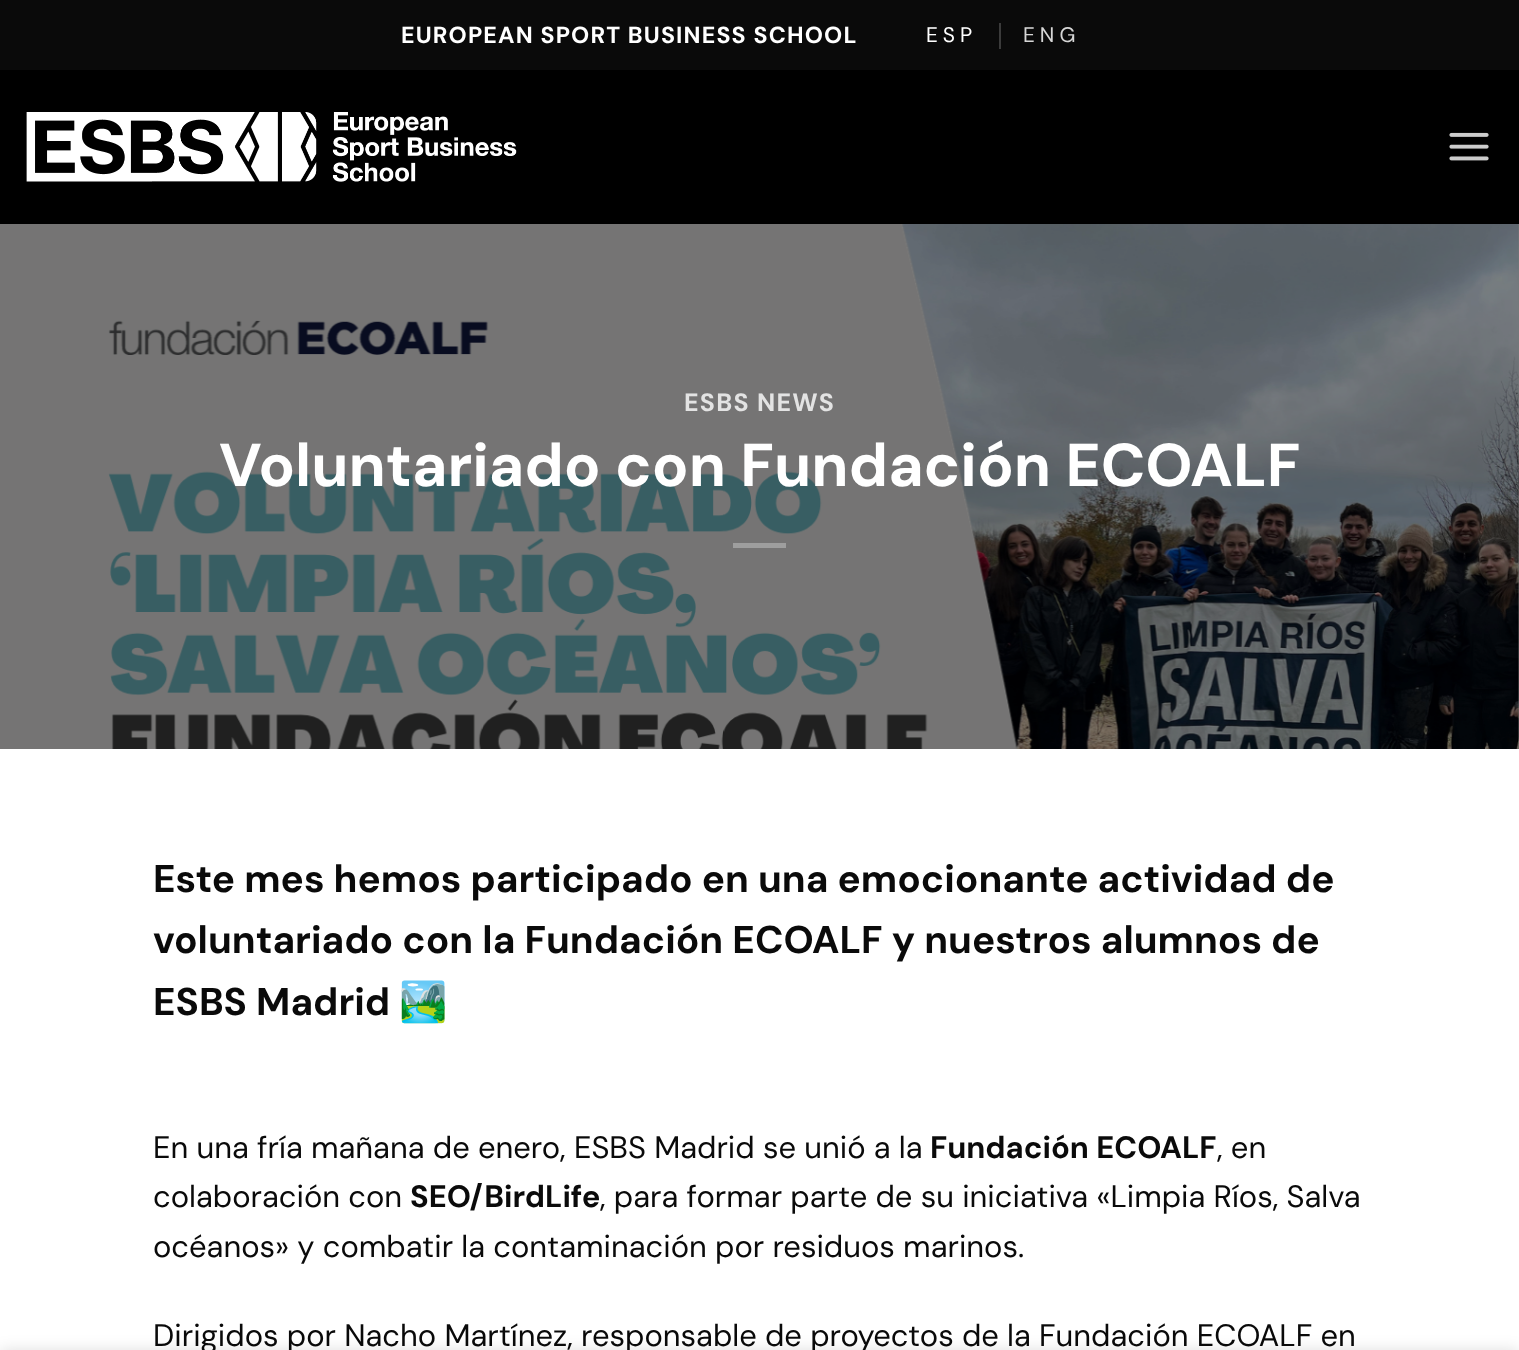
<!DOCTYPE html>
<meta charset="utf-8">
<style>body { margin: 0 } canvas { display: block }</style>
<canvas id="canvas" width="1519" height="1350"></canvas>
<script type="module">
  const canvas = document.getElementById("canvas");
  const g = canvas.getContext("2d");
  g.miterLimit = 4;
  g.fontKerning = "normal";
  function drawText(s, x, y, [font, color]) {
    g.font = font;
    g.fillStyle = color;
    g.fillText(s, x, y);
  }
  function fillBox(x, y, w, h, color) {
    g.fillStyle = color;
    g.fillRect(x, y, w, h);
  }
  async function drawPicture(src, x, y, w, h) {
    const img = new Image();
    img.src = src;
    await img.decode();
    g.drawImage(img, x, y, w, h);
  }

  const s1 = ["bold 23.25px DM Sans", "#FFFFFF"];
  const s2 = ["21px DM Sans", "#FFFFFF"];
  const s3 = ["21px DM Sans", "#D6D6D6"];
  const s4 = ["bold 25px DM Sans", "#E3E3E3"];
  const s5 = ["bold 60.5px DM Sans", "#FFFFFF"];
  const s6 = ["bold 38.7px DM Sans", "#0A0A0A"];
  const s7 = ["bold 38.7px Noto Color Emoji", "#0A0A0A"];
  const s8 = ["30.95px DM Sans", "#0A0A0A"];
  const s9 = ["bold 30.95px DM Sans", "#0A0A0A"];

  fillBox(0, 0, 1519, 1350, "#FFFFFF");
  fillBox(0, 0, 1519, 70, "#0A0A0A");
  g.letterSpacing = "1.15px";
  drawText("EUROPEAN SPORT BUSINESS SCHOOL", 401, 43, s1);
  g.letterSpacing = "5px";
  drawText("ESP", 926, 42, s2);
  fillBox(999, 23, 2, 26, "#3B3B3B");
  drawText("ENG", 1023, 42, s3);
  fillBox(0, 70, 1519, 154, "#000000");
  await drawPicture("pic1.png", 26, 112, 491, 70);
  await drawPicture("pic2.png", 1449, 132, 40, 29);
  await drawPicture("pic3.png", 0, 224, 1519, 525);
  g.letterSpacing = "1.25px";
  drawText("ESBS NEWS", 684, 411, s4);
  g.letterSpacing = "0px";
  drawText("Voluntariado con Fundación ECOALF", 219, 486, s5);
  fillBox(733, 543, 53, 5, "#9E9E9E");
  drawText("Este mes hemos participado en una emocionante actividad de", 153, 892, s6);
  drawText("voluntariado con la Fundación ECOALF y nuestros alumnos de", 153, 953, s6);
  drawText("ESBS Madrid", 153, 1015, s6);
  drawText("🏞️", 399, 1015, s7);
  drawText("En una fría mañana de enero, ESBS Madrid se unió a la", 153, 1158, s8);
  drawText("Fundación ECOALF", 930, 1158, s9);
  drawText(", en", 1217, 1158, s8);
  drawText("colaboración con", 153, 1207, s8);
  drawText("SEO/BirdLife", 410, 1207, s9);
  drawText(", para formar parte de su iniciativa «Limpia Ríos, Salva", 600, 1207, s8);
  drawText("océanos» y combatir la contaminación por residuos marinos.", 153, 1257, s8);
  drawText("Dirigidos por Nacho Martínez, responsable de proyectos de la Fundación ECOALF en", 153, 1346, s8);
  g.fillStyle = "rgba(0, 0, 0, 0.14)";
  g.filter = "blur(8px)";
  g.beginPath();
  g.rect(0, 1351, 1519, 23);
  g.fill();
  g.filter = "none";
</script>
